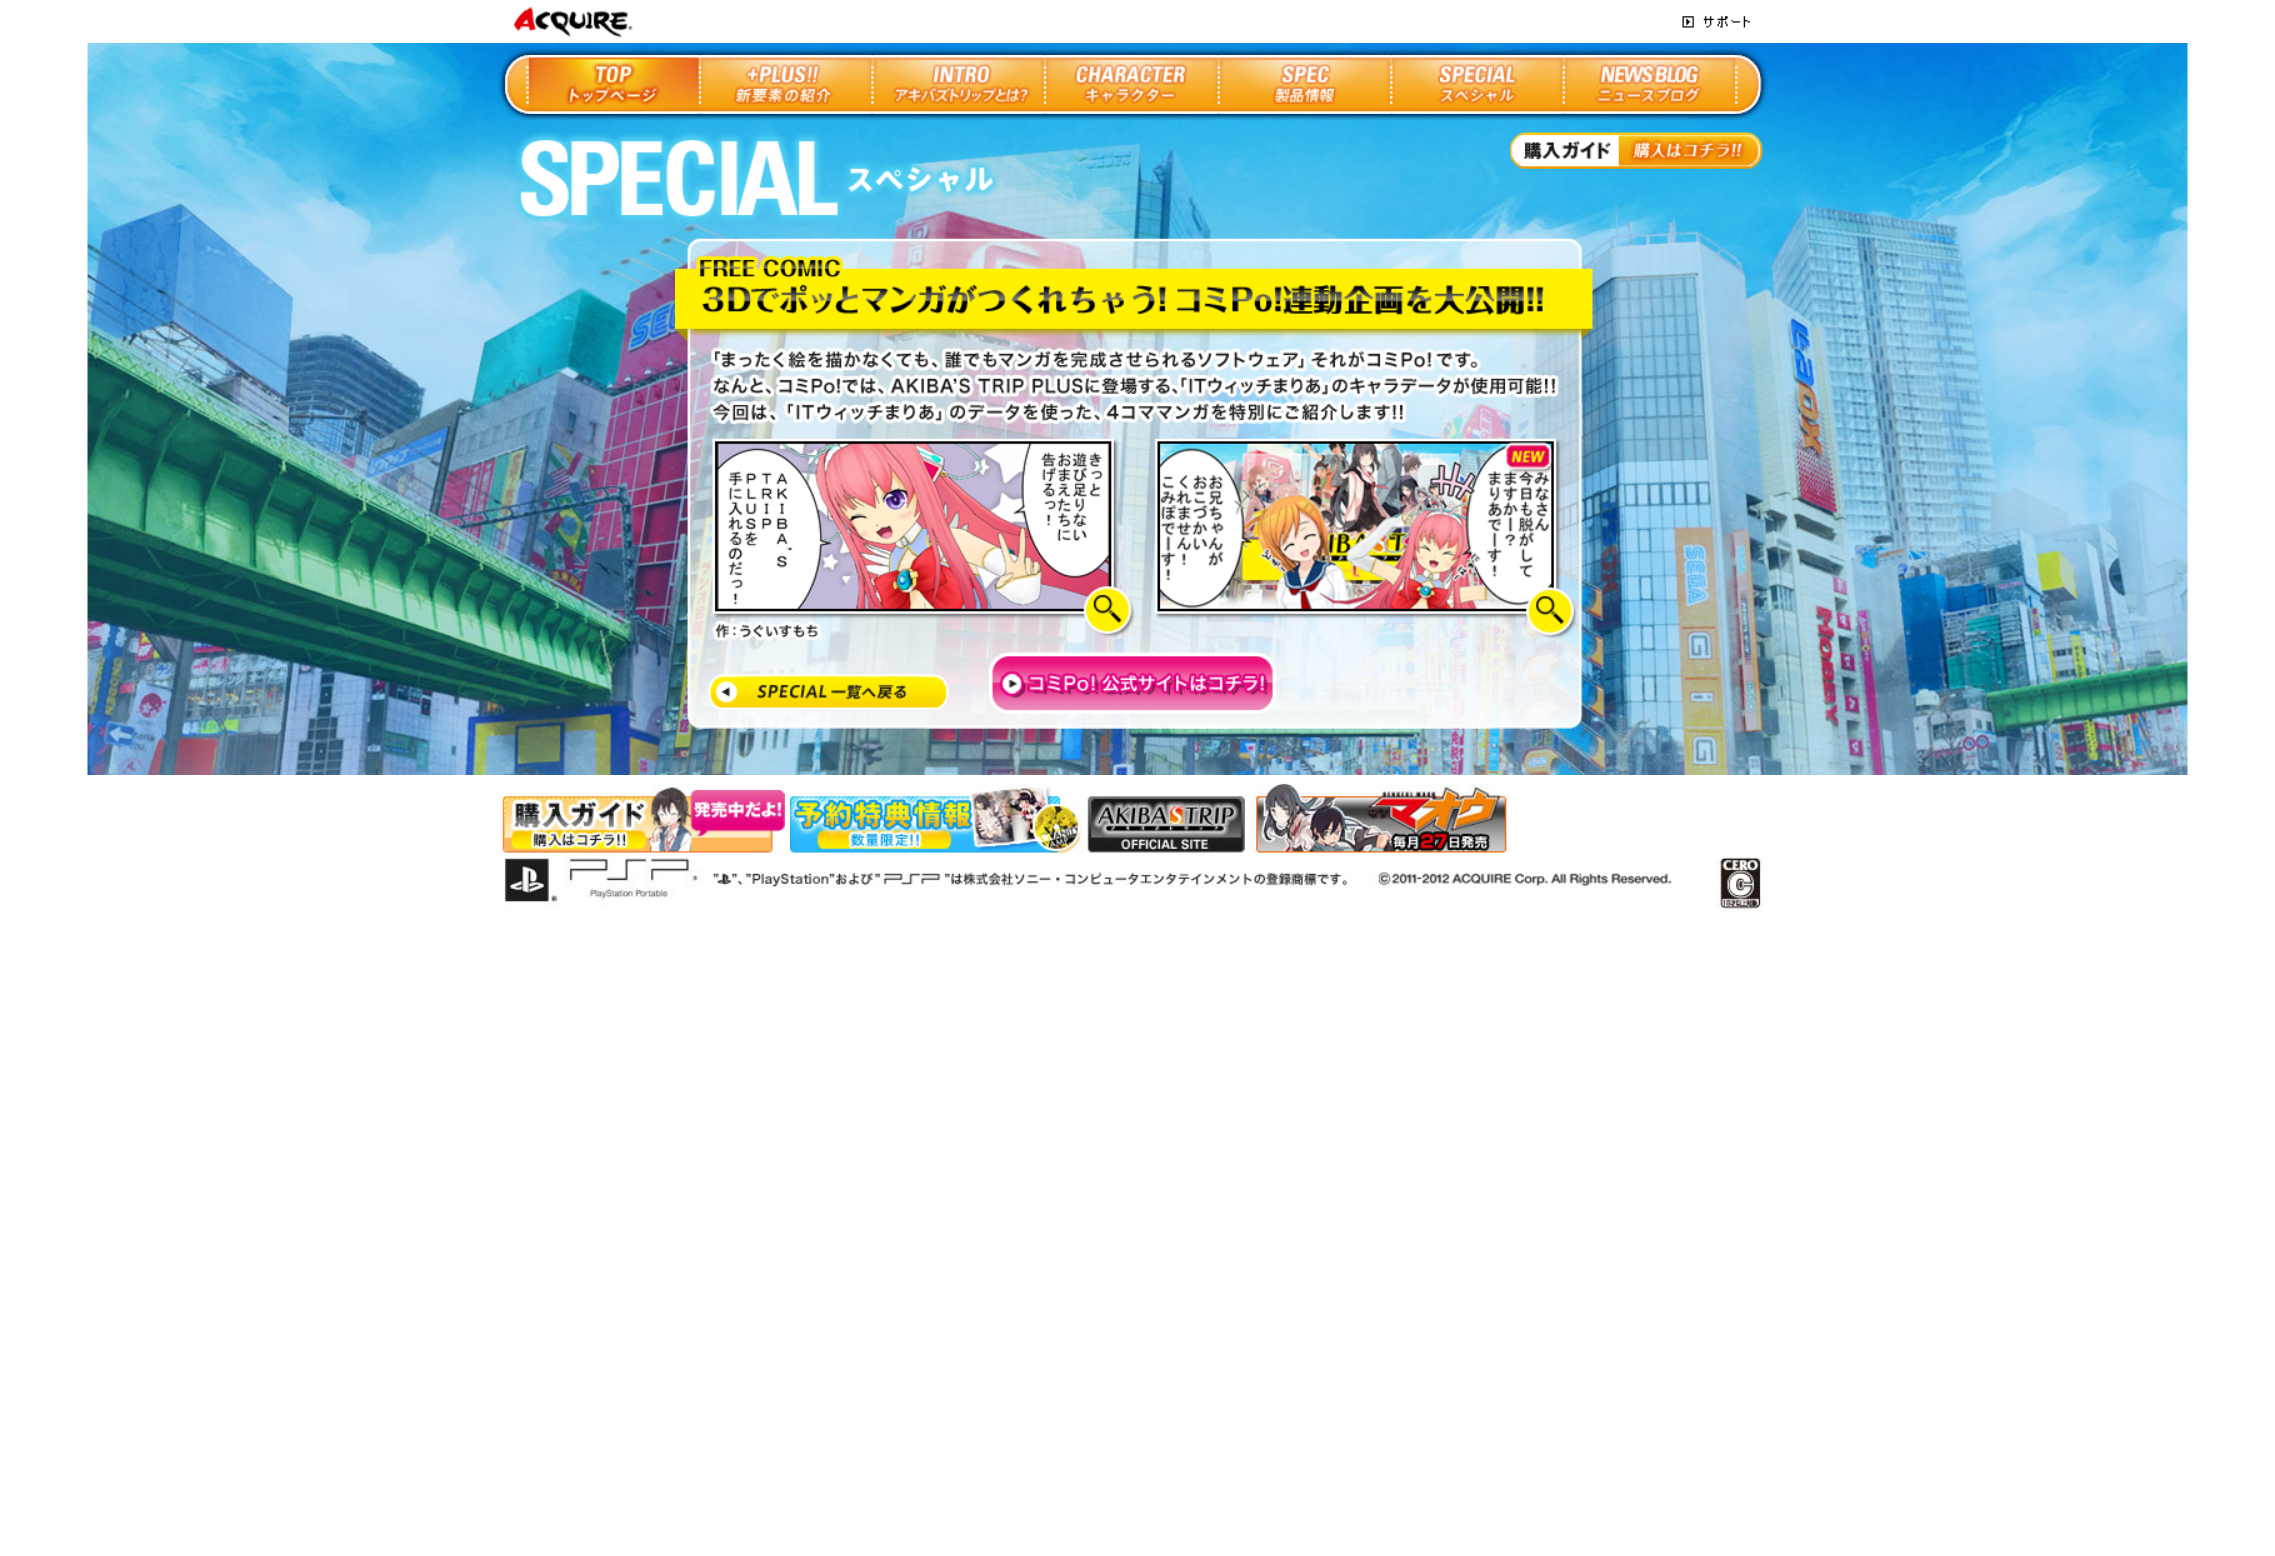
<!DOCTYPE html>
<meta charset="utf-8">
<style>body { margin: 0 } canvas { display: block }</style>
<canvas id="canvas" width="2275" height="1556"></canvas>
<script type="module">
  const canvas = document.getElementById("canvas");
  const g = canvas.getContext("2d");
  g.miterLimit = 4;
  g.fontKerning = "normal";
  function fillBox(x, y, w, h, color) {
    g.fillStyle = color;
    g.fillRect(x, y, w, h);
  }
  async function drawPicture(src, x, y, w, h) {
    const img = new Image();
    img.src = src;
    await img.decode();
    g.drawImage(img, x, y, w, h);
  }

  fillBox(0, 0, 2275, 1556, "#FFFFFF");
  await drawPicture("pic1.png", 87, 43, 2101, 732);
  await drawPicture("pic2.png", 513, 6, 120, 32);
  await drawPicture("pic3.png", 1682, 16, 68, 12);
  await drawPicture("pic4.png", 498, 48, 1270, 72);
  await drawPicture("pic5.png", 528, 55, 171, 59);
  await drawPicture("pic6.png", 701, 55, 171, 59);
  await drawPicture("pic7.png", 873, 55, 171, 59);
  await drawPicture("pic8.png", 1046, 55, 172, 59);
  await drawPicture("pic9.png", 1220, 55, 170, 59);
  await drawPicture("pic10.png", 1392, 55, 171, 59);
  await drawPicture("pic11.png", 1565, 55, 170, 59);
  await drawPicture("pic12.png", 513, 132, 488, 91);
  await drawPicture("pic13.png", 675, 238, 919, 491);
  await drawPicture("pic14.png", 712, 438, 423, 200);
  await drawPicture("pic15.png", 1154, 438, 424, 201);
  await drawPicture("pic16.png", 707, 674, 242, 36);
  await drawPicture("pic17.png", 988, 652, 289, 62);
  await drawPicture("pic18.png", 1510, 132, 253, 37);
  await drawPicture("pic19.png", 502, 784, 283, 69);
  await drawPicture("pic20.png", 790, 784, 292, 70);
  await drawPicture("pic21.png", 1087, 796, 158, 57);
  await drawPicture("pic22.png", 1250, 783, 260, 70);
  await drawPicture("pic23.png", 503, 858, 57, 51);
  await drawPicture("pic24.png", 565, 858, 139, 48);
  await drawPicture("pic25.png", 713, 870, 959, 19);
  await drawPicture("pic26.png", 1716, 857, 48, 55);
</script>
